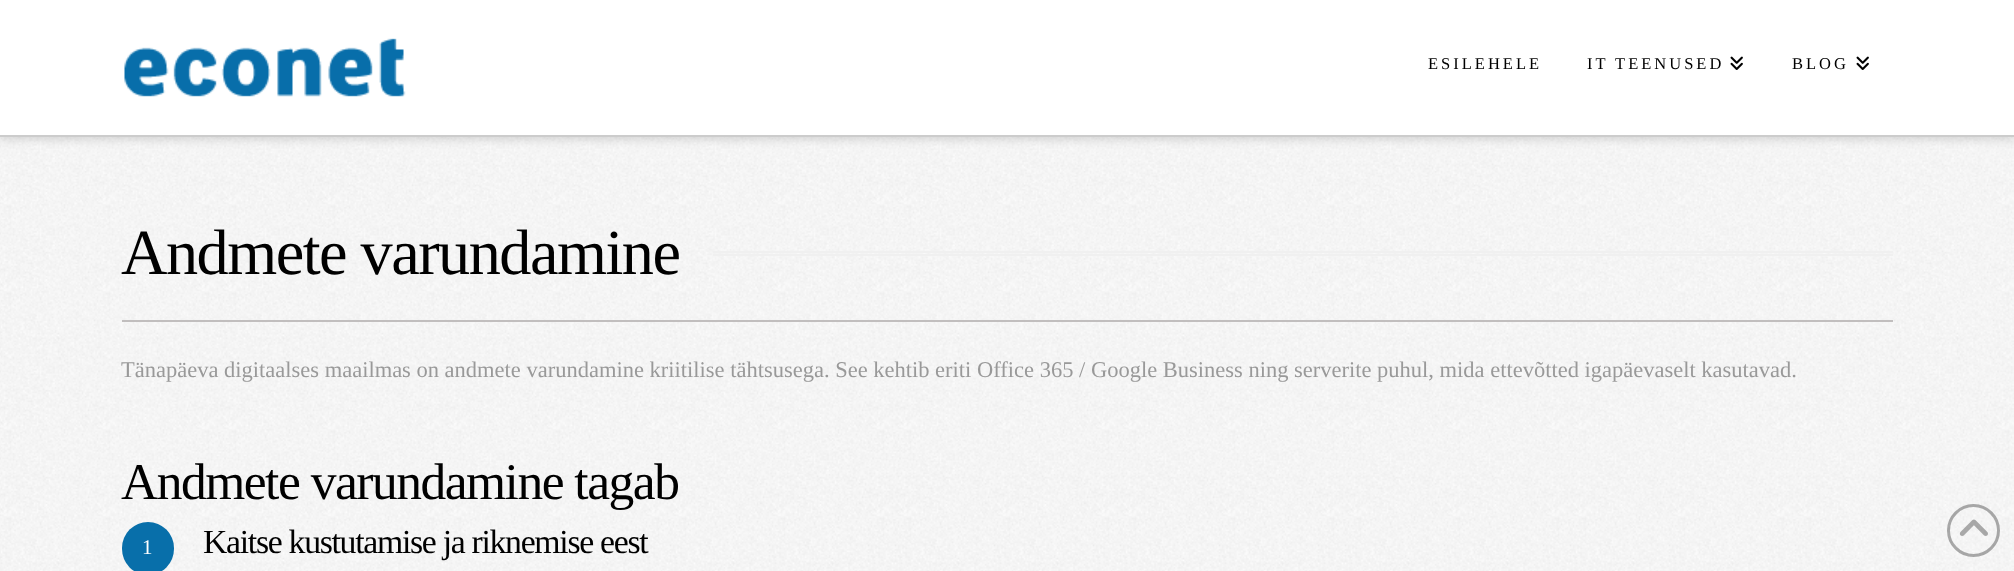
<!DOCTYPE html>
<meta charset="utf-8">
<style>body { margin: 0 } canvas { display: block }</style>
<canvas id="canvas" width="2014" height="571"></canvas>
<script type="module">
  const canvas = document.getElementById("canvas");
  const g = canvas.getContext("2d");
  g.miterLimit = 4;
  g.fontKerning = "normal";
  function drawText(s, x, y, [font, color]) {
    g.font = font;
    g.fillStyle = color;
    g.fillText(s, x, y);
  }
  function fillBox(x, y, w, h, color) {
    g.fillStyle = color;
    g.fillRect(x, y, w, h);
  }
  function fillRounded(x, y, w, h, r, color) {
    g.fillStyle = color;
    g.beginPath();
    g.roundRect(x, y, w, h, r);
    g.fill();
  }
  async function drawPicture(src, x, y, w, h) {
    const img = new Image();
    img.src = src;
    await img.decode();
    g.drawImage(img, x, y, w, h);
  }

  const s1 = ["16.5px Liberation Serif", "#000000"];
  const s2 = ["64.25px Liberation Serif", "#000000"];
  const s3 = ["22.5px Liberation Serif", "#999999"];
  const s4 = ["51.5px Liberation Serif", "#000000"];
  const s5 = ["21px Liberation Serif", "#FFFFFF"];
  const s6 = ["33.75px Liberation Serif", "#000000"];

  fillBox(0, 0, 2014, 571, "#FFFFFF");
  await drawPicture("pic1.png", 0, 137, 2014, 434);
  g.fillStyle = "rgba(0, 0, 0, 0.13)";
  g.filter = "blur(4px)";
  g.beginPath();
  g.rect(0, 3, 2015, 137);
  g.fill();
  g.filter = "none";
  fillBox(0, 0, 2014, 135, "#FFFFFF");
  fillBox(0, 135, 2014, 2, "#CCCCCC");
  await drawPicture("pic2.png", 124, 38, 282, 59);
  g.letterSpacing = "3px";
  drawText("ESILEHELE", 1428, 69, s1);
  drawText("IT TEENUSED", 1587, 69, s1);
  await drawPicture("pic3.png", 1730, 56, 13, 14);
  drawText("BLOG", 1792, 69, s1);
  await drawPicture("pic3.png", 1856, 56, 13, 14);
  g.letterSpacing = "-1.5px";
  drawText("Andmete varundamine", 121, 274, s2);
  fillBox(713, 251, 1180, 2, "#F0F0F0");
  fillBox(713, 254, 1180, 2, "#F0F0F0");
  fillBox(122, 320, 1771, 2, "#C1BEBE");
  g.letterSpacing = "0px";
  drawText("Tänapäeva digitaalses maailmas on andmete varundamine kriitilise tähtsusega. See kehtib eriti Office 365 / Google Business ning serverite puhul, mida ettevõtted igapäevaselt kasutavad.", 121, 377, s3);
  g.letterSpacing = "-1.5px";
  drawText("Andmete varundamine tagab", 121, 499, s4);
  fillRounded(122, 522, 52, 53, 26, "#086FAA");
  g.letterSpacing = "0px";
  drawText("1", 142, 554, s5);
  g.letterSpacing = "-1.3px";
  drawText("Kaitse kustutamise ja riknemise eest", 203, 553, s6);
  g.beginPath();
  g.arc(1973.5, 530.5, 25, 0, Math.PI * 2);
  g.strokeStyle = "rgba(39, 39, 39, 0.38)";
  g.lineWidth = 3;
  g.stroke();
  await drawPicture("pic4.png", 1959, 519, 29, 17);
</script>
